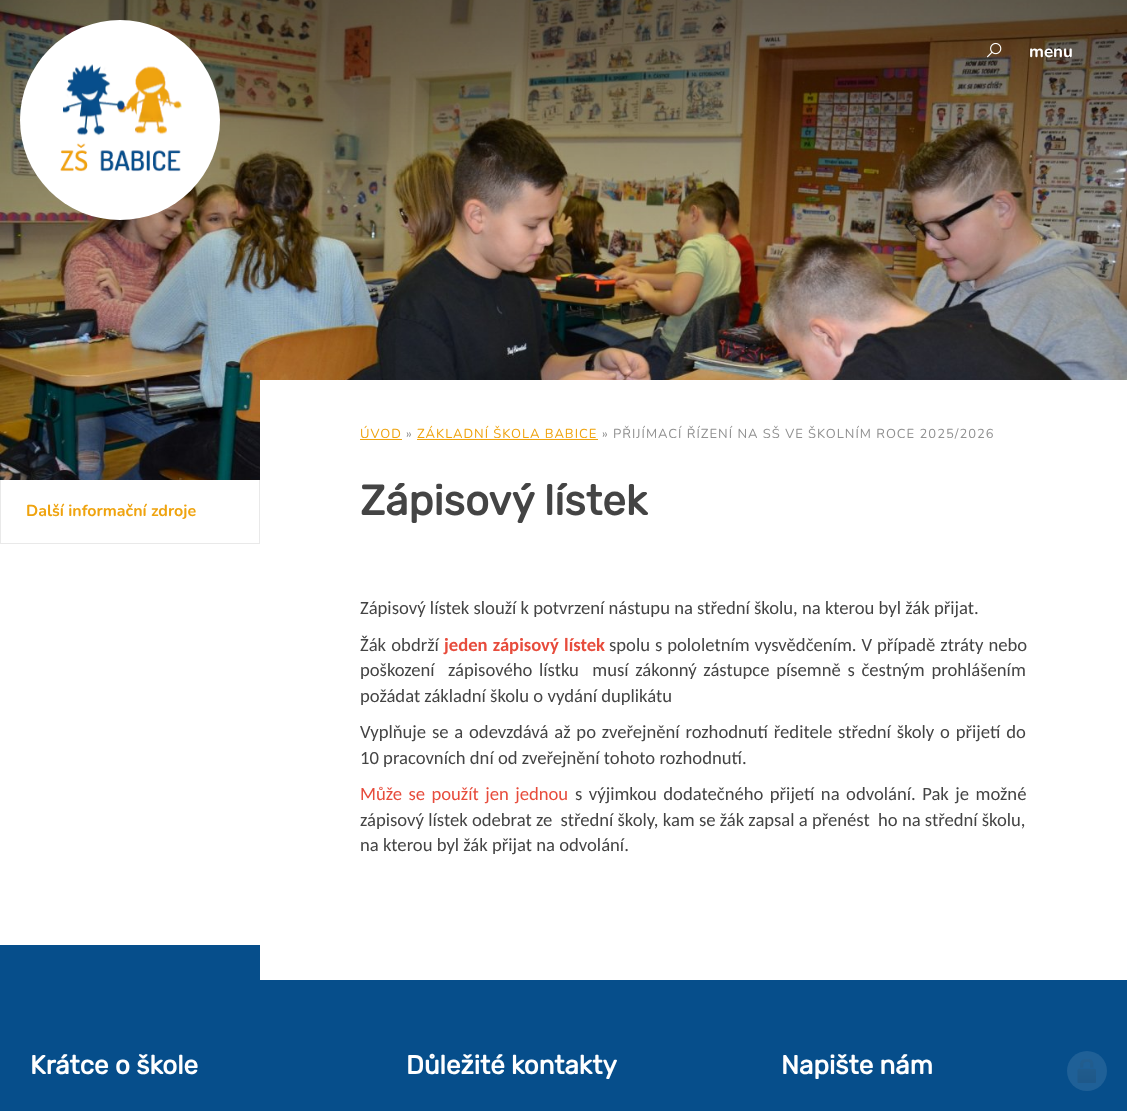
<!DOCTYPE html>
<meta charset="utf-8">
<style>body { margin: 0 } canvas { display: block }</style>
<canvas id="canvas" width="1127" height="1111"></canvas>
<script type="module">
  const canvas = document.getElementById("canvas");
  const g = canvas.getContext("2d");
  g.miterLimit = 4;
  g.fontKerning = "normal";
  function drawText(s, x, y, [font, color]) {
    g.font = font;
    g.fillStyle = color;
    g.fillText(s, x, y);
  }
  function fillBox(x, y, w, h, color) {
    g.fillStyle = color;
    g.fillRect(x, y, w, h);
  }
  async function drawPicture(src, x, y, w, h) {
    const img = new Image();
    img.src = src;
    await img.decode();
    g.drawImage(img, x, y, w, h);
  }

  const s1 = ["bold 17px Nunito", "#FFFFFF"];
  const s2 = ["bold 16px Nunito", "#EFA30E"];
  const s3 = ["13px Nunito", "#EFA30E"];
  const s4 = ["13px Nunito", "#919191"];
  const s5 = ["bold 42px Rubik", "#444444"];
  const s6 = ["18.65px Carlito", "#444444"];
  const s7 = ["bold 18.65px Carlito", "#E74C3C"];
  const s8 = ["18.65px Carlito", "#E74C3C"];
  const s9 = ["bold 26px Rubik", "#FFFFFF"];

  fillBox(0, 0, 1127, 1111, "#064E8B");
  await drawPicture("pic1.png", 0, 0, 1127, 480);
  g.fillStyle = "#FFFFFF";
  g.beginPath();
  g.arc(120, 120, 100, 0, Math.PI * 2);
  g.fill();
  await drawPicture("pic2.png", 60, 64, 122, 108);
  await drawPicture("pic3.png", 986, 42, 16, 16);
  drawText("menu", 1029, 57, s1);
  fillBox(0, 480, 260, 465, "#FFFFFF");
  fillBox(259, 480, 1, 64, "#E9E9E9");
  fillBox(0, 543, 260, 1, "#E9E9E9");
  fillBox(0, 480, 1, 64, "#E9E9E9");
  drawText("Další informační zdroje", 26, 516, s2);
  fillBox(260, 380, 867, 600, "#FFFFFF");
  g.letterSpacing = "1px";
  drawText("ÚVOD", 360, 438, s3);
  fillBox(360, 439, 42, 1, "#EFA30E");
  drawText("»", 406, 438, s4);
  drawText("ZÁKLADNÍ ŠKOLA BABICE", 417, 438, s3);
  fillBox(417, 439, 181, 1, "#EFA30E");
  drawText("» PŘIJÍMACÍ ŘÍZENÍ NA SŠ VE ŠKOLNÍM ROCE 2025/2026", 602, 438, s4);
  g.letterSpacing = "0px";
  drawText("Zápisový lístek", 360, 515, s5);
  drawText("Zápisový lístek slouží k potvrzení nástupu na střední školu, na kterou byl žák přijat.", 360, 614, s6);
  g.wordSpacing = "1px";
  drawText("Žák obdrží", 360, 651, s6);
  drawText("jeden zápisový lístek", 444, 651, s7);
  g.wordSpacing = "0.75px";
  drawText("spolu s pololetním vysvědčením. V případě ztráty nebo", 609, 651, s6);
  g.wordSpacing = "2.5px";
  drawText("poškození  zápisového lístku  musí zákonný zástupce písemně s čestným prohlášením", 360, 676, s6);
  g.wordSpacing = "0px";
  drawText("požádat základní školu o vydání duplikátu", 360, 702, s6);
  g.wordSpacing = "1.6px";
  drawText("Vyplňuje se a odevzdává až po zveřejnění rozhodnutí ředitele střední školy o přijetí do", 360, 738, s6);
  g.wordSpacing = "0px";
  drawText("10 pracovních dní od zveřejnění tohoto rozhodnutí.", 360, 764, s6);
  g.wordSpacing = "2.25px";
  drawText("Může se použít jen jednou", 360, 800, s8);
  drawText("s výjimkou dodatečného přijetí na odvolání. Pak je možné", 575, 800, s6);
  g.wordSpacing = "0px";
  drawText("zápisový lístek odebrat ze  střední školy, kam se žák zapsal a přenést  ho na střední školu,", 360, 826, s6);
  drawText("na kterou byl žák přijat na odvolání.", 360, 851, s6);
  drawText("Krátce o škole", 30, 1074, s9);
  drawText("Důležité kontakty", 406, 1074, s9);
  drawText("Napište nám", 781, 1074, s9);
  g.fillStyle = "#1F6097";
  g.beginPath();
  g.arc(1087, 1071, 20, 0, Math.PI * 2);
  g.fill();
  await drawPicture("pic4.png", 1077, 1059, 19, 24);
</script>
